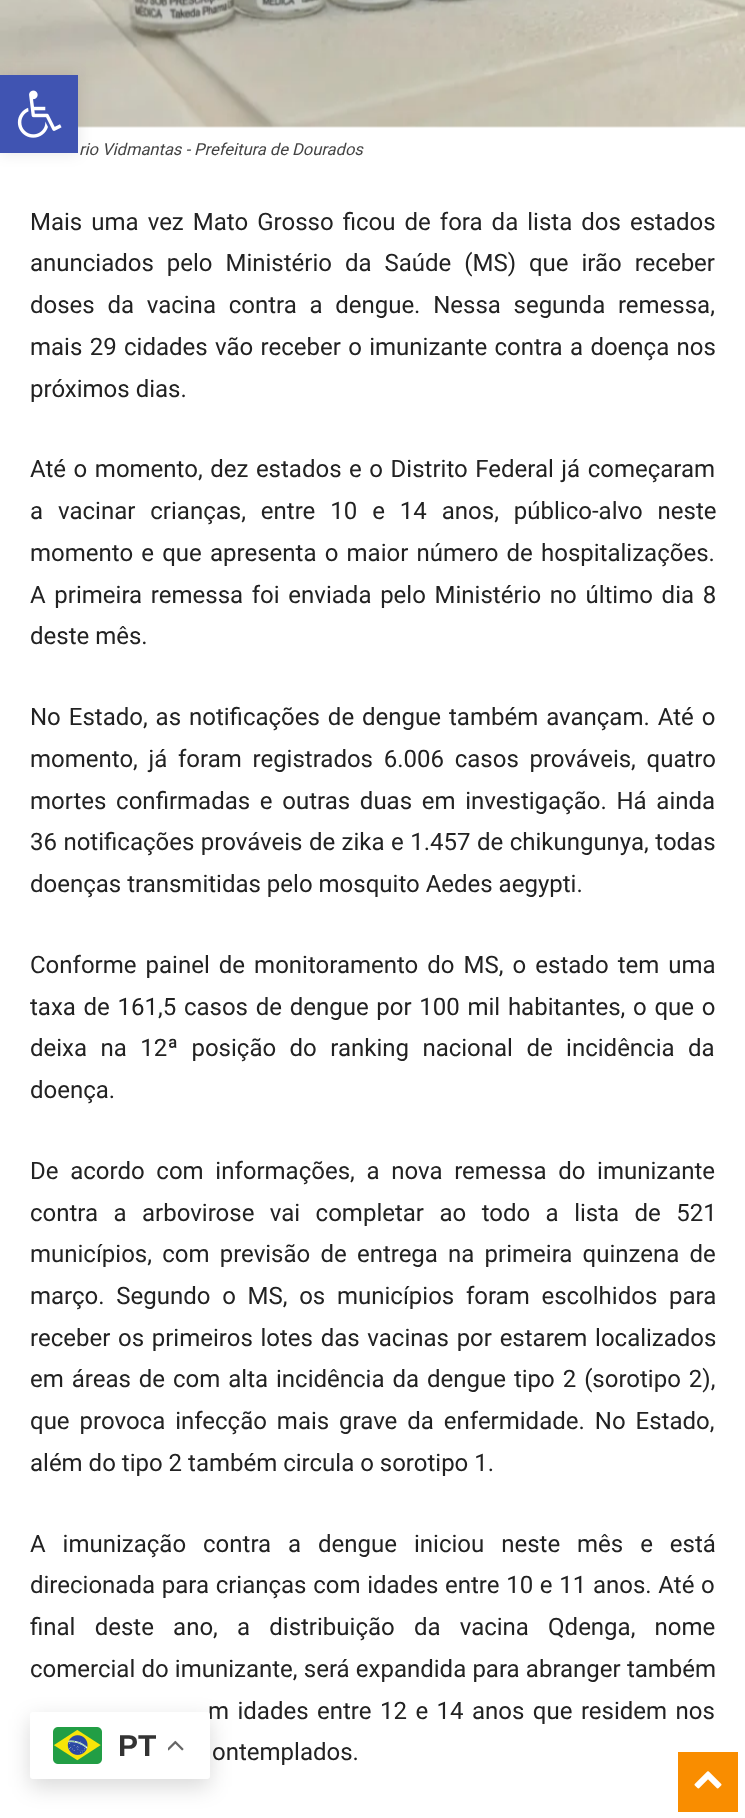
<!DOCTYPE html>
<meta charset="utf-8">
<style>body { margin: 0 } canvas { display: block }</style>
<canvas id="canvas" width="745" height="1818"></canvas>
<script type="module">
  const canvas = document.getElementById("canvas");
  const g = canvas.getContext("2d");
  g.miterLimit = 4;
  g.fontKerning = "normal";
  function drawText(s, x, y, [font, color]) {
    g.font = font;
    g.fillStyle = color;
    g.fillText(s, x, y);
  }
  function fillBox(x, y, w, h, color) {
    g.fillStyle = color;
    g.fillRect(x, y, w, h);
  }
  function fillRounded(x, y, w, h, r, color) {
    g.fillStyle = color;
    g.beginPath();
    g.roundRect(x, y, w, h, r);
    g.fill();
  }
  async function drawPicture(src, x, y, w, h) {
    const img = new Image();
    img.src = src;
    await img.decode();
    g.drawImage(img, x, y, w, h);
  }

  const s1 = ["italic 16.5px Roboto", "#444444"];
  const s2 = ["24px Roboto", "#222222"];
  const s3 = ["bold 30px Liberation Sans", "#333333"];

  fillBox(0, 0, 745, 1818, "#FFFFFF");
  await drawPicture("pic2.png", 0, 0, 745, 128);
  g.fillStyle = "rgba(0, 0, 0, 0.1)";
  g.filter = "blur(7.5px)";
  g.beginPath();
  g.rect(0, 75, 78, 78);
  g.fill();
  g.filter = "none";
  fillBox(0, 75, 78, 78, "#4054B2");
  await drawPicture("pic1.png", 17, 90, 45, 48);
  drawText("rio Vidmantas - Prefeitura de Dourados", 79, 155, s1);
  g.wordSpacing = "3.1px";
  drawText("Mais uma vez Mato Grosso ficou de fora da lista dos estados", 30, 230, s2);
  g.wordSpacing = "7px";
  drawText("anunciados pelo Ministério da Saúde (MS) que irão receber", 30, 271, s2);
  g.wordSpacing = "6.75px";
  drawText("doses da vacina contra a dengue. Nessa segunda remessa,", 30, 313, s2);
  g.wordSpacing = "1.4px";
  drawText("mais 29 cidades vão receber o imunizante contra a doença nos", 30, 355, s2);
  g.wordSpacing = "0px";
  drawText("próximos dias.", 30, 397, s2);
  g.wordSpacing = "1.6px";
  drawText("Até o momento, dez estados e o Distrito Federal já começaram", 30, 477, s2);
  g.wordSpacing = "9px";
  drawText("a vacinar crianças, entre 10 e 14 anos, público-alvo neste", 30, 519, s2);
  g.wordSpacing = "2.25px";
  drawText("momento e que apresenta o maior número de hospitalizações.", 30, 561, s2);
  g.wordSpacing = "2.75px";
  drawText("A primeira remessa foi enviada pelo Ministério no último dia 8", 30, 603, s2);
  g.wordSpacing = "0px";
  drawText("deste mês.", 30, 644, s2);
  g.wordSpacing = "2px";
  drawText("No Estado, as notificações de dengue também avançam. Até o", 30, 725, s2);
  g.wordSpacing = "4.75px";
  drawText("momento, já foram registrados 6.006 casos prováveis, quatro", 30, 767, s2);
  g.wordSpacing = "3.75px";
  drawText("mortes confirmadas e outras duas em investigação. Há ainda", 30, 809, s2);
  g.wordSpacing = "0.5px";
  drawText("36 notificações prováveis de zika e 1.457 de chikungunya, todas", 30, 850, s2);
  g.wordSpacing = "0px";
  drawText("doenças transmitidas pelo mosquito Aedes aegypti.", 30, 892, s2);
  g.wordSpacing = "3.1px";
  drawText("Conforme painel de monitoramento do MS, o estado tem uma", 30, 973, s2);
  g.wordSpacing = "1.75px";
  drawText("taxa de 161,5 casos de dengue por 100 mil habitantes, o que o", 30, 1015, s2);
  g.wordSpacing = "7.5px";
  drawText("deixa na 12ª posição do ranking nacional de incidência da", 30, 1056, s2);
  g.wordSpacing = "0px";
  drawText("doença.", 30, 1098, s2);
  g.wordSpacing = "5.75px";
  drawText("De acordo com informações, a nova remessa do imunizante", 30, 1179, s2);
  g.wordSpacing = "9.5px";
  drawText("contra a arbovirose vai completar ao todo a lista de 521", 30, 1221, s2);
  g.wordSpacing = "4.25px";
  drawText("municípios, com previsão de entrega na primeira quinzena de", 30, 1262, s2);
  g.wordSpacing = "5.75px";
  drawText("março. Segundo o MS, os municípios foram escolhidos para", 30, 1304, s2);
  g.wordSpacing = "1.75px";
  drawText("receber os primeiros lotes das vacinas por estarem localizados", 30, 1346, s2);
  g.wordSpacing = "2px";
  drawText("em áreas de com alta incidência da dengue tipo 2 (sorotipo 2),", 30, 1387, s2);
  g.wordSpacing = "4px";
  drawText("que provoca infecção mais grave da enfermidade. No Estado,", 30, 1429, s2);
  g.wordSpacing = "0px";
  drawText("além do tipo 2 também circula o sorotipo 1.", 30, 1471, s2);
  g.wordSpacing = "11px";
  drawText("A imunização contra a dengue iniciou neste mês e está", 30, 1552, s2);
  g.wordSpacing = "0.75px";
  drawText("direcionada para crianças com idades entre 10 e 11 anos. Até o", 30, 1593, s2);
  g.wordSpacing = "13.25px";
  drawText("final deste ano, a distribuição da vacina Qdenga, nome", 30, 1635, s2);
  g.wordSpacing = "0.25px";
  drawText("comercial do imunizante, será expandida para abranger também", 30, 1677, s2);
  g.wordSpacing = "2.5px";
  drawText("m idades entre 12 e 14 anos que residem nos", 208, 1719, s2);
  g.wordSpacing = "0px";
  drawText("ontemplados.", 212, 1760, s2);
  g.fillStyle = "rgba(0, 0, 0, 0.15)";
  g.filter = "blur(11px)";
  g.beginPath();
  g.roundRect(30, 1719, 180, 68, 3);
  g.fill();
  g.filter = "none";
  fillRounded(30, 1712, 180, 67, 3, "#FFFFFF");
  await drawPicture("pic3.png", 53, 1727, 49, 37);
  drawText("PT", 118, 1756, s3);
  await drawPicture("pic4.png", 168, 1740, 16, 11);
  fillBox(678, 1752, 60, 60, "#F98D00");
  await drawPicture("pic5.png", 694, 1771, 28, 18);
</script>
